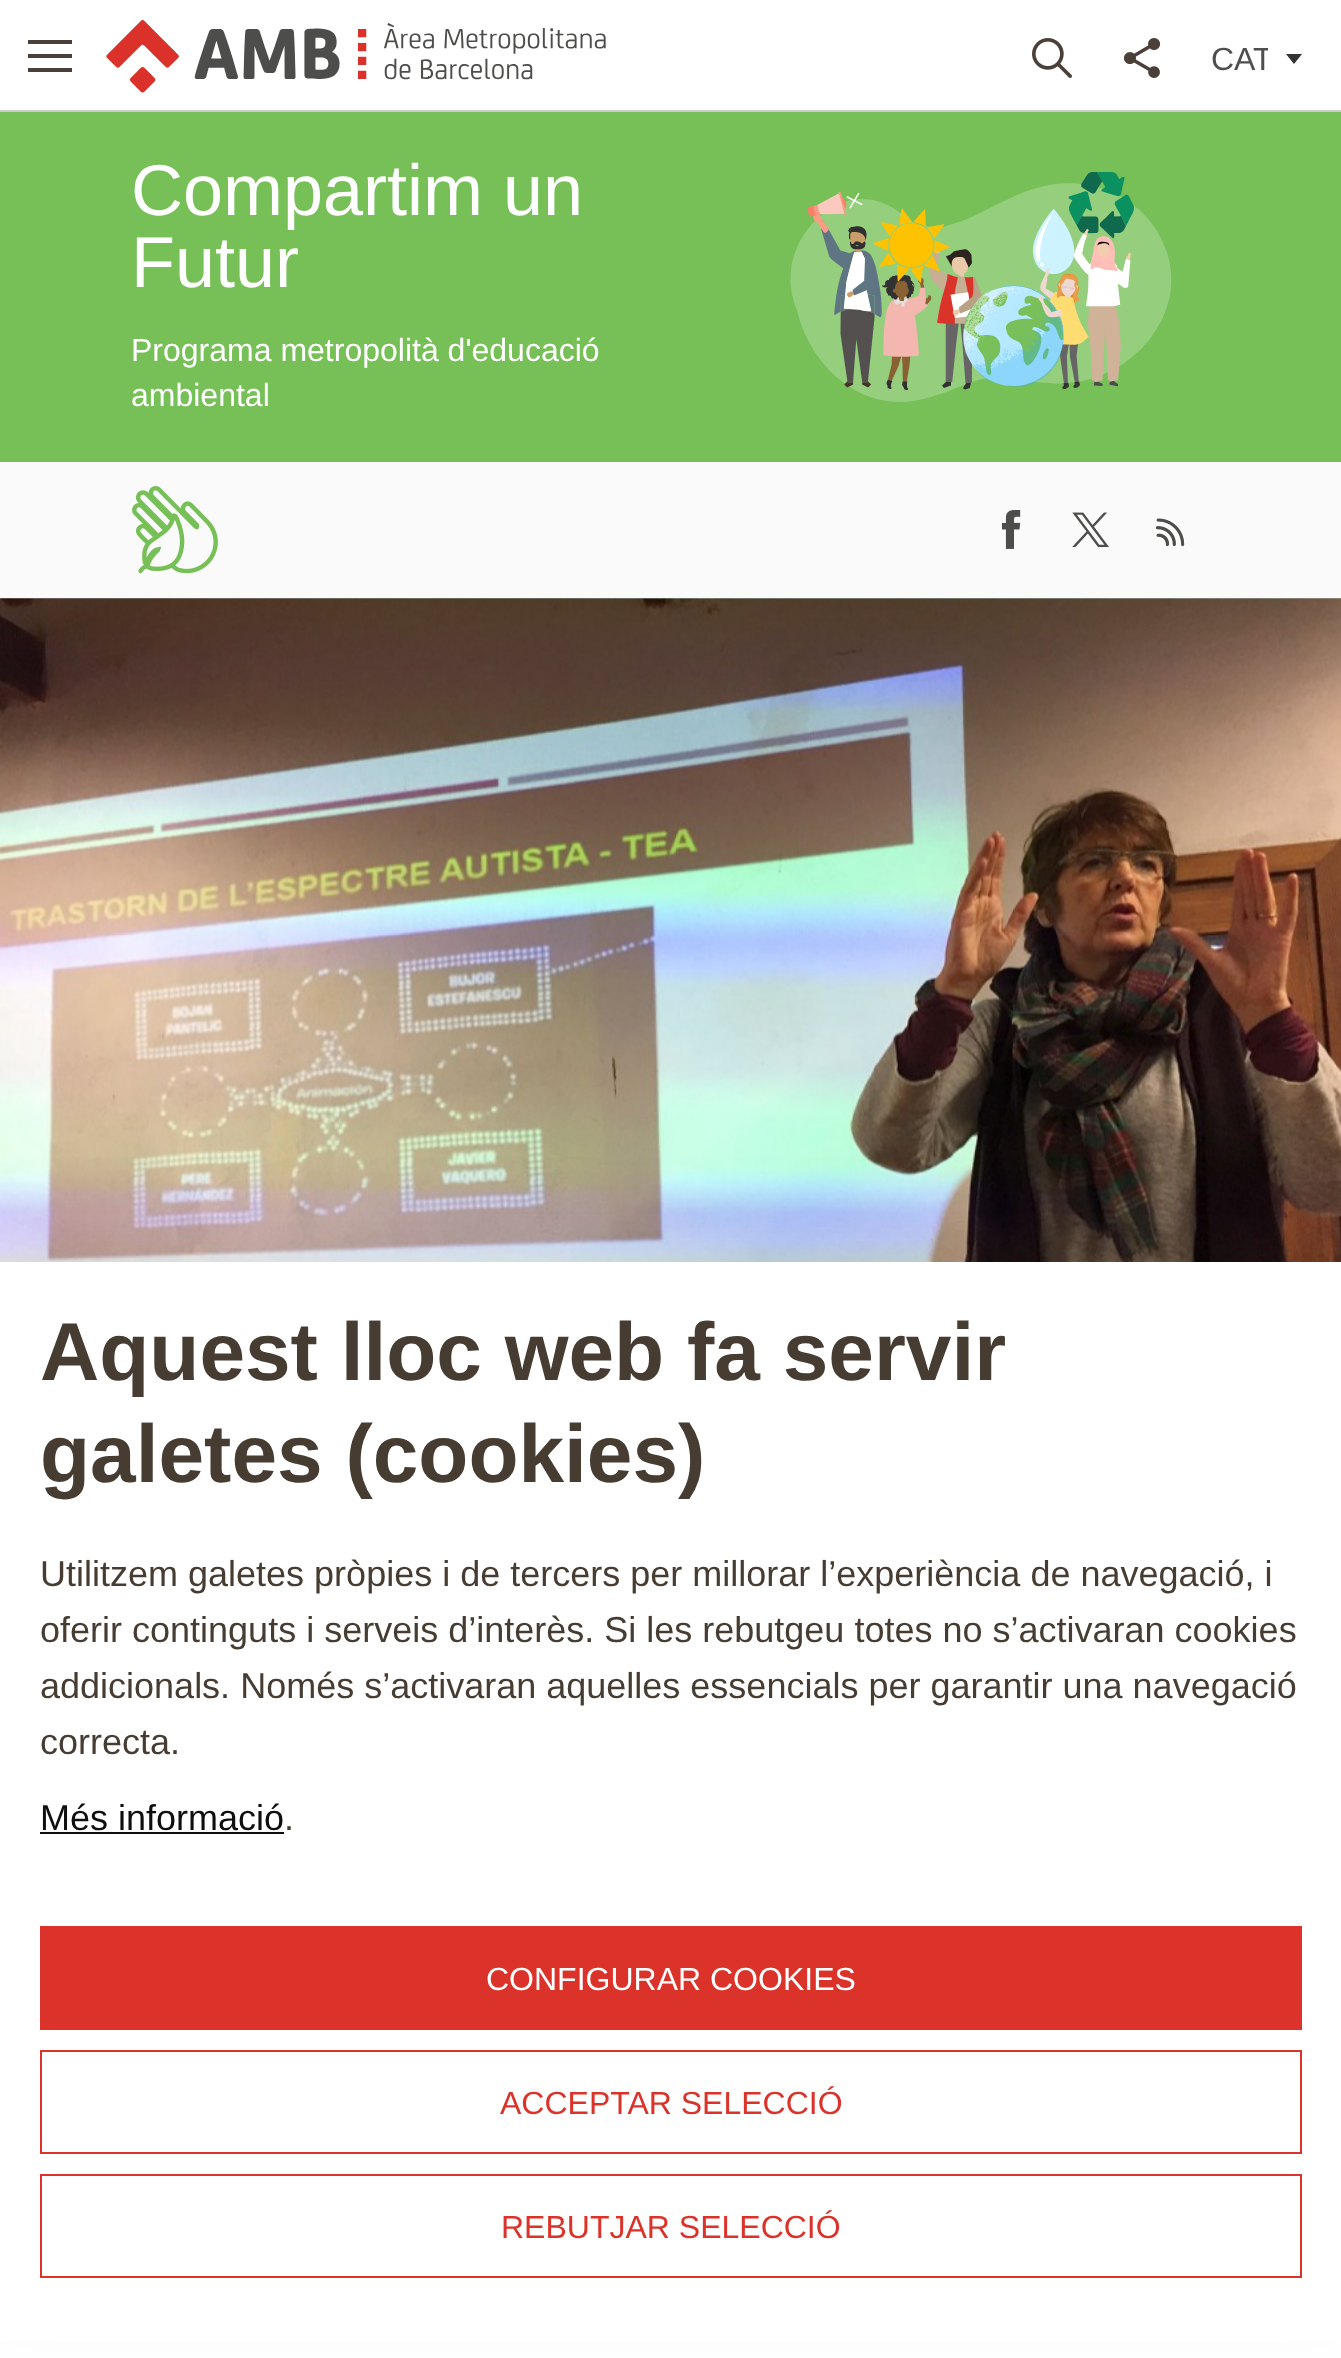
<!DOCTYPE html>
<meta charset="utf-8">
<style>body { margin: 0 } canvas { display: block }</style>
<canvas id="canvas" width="1341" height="2358"></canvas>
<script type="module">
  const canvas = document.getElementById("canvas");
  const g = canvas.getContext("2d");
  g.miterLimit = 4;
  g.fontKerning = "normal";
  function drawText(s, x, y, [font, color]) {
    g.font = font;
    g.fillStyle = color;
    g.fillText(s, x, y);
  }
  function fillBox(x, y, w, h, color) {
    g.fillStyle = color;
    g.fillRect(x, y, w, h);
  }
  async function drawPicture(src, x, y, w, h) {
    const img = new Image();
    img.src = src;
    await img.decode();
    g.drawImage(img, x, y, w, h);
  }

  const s1 = ["32px Liberation Sans", "#4E4E4E"];
  const s2 = ["72px Liberation Sans", "#FFFFFF"];
  const s3 = ["32px Liberation Sans", "#FFFFFF"];
  const s4 = ["bold 82px Liberation Sans", "#463C32"];
  const s5 = ["36px Liberation Sans", "#463C32"];
  const s6 = ["36px Liberation Sans", "#0E0E0E"];
  const s7 = ["32px Liberation Sans", "#DB322A"];

  fillBox(0, 0, 1341, 2358, "#FFFFFF");
  fillBox(0, 110, 1341, 2, "#CCCCCC");
  fillBox(28, 54, 44, 4, "#4A4039");
  fillBox(28, 40, 44, 4, "#4A4039");
  fillBox(28, 68, 44, 4, "#4A4039");
  await drawPicture("pic1.png", 106, 20, 500, 73);
  await drawPicture("pic2.png", 1032, 38, 40, 40);
  await drawPicture("pic3.png", 1123, 38, 38, 40);
  g.save();
  g.beginPath();
  g.rect(1212, 10, 56, 98);
  g.clip();
  drawText("CAT", 1211, 70, s1);
  g.restore();
  g.fillStyle = "#333333";
  g.beginPath();
  g.moveTo(1286, 54);
  g.lineTo(1302, 54);
  g.lineTo(1294, 64);
  g.closePath();
  g.fill();
  fillBox(0, 112, 1341, 350, "#76C057");
  drawText("Compartim un", 131, 215, s2);
  drawText("Futur", 131, 287, s2);
  drawText("Programa metropolità d'educació", 131, 361, s3);
  drawText("ambiental", 131, 406, s3);
  await drawPicture("pic4.png", 790, 172, 382, 230);
  fillBox(0, 462, 1341, 136, "#FAFAFA");
  await drawPicture("pic5.png", 132, 486, 86, 88);
  await drawPicture("pic6.png", 1002, 510, 19, 39);
  await drawPicture("pic7.png", 1072, 512, 37, 36);
  await drawPicture("pic8.png", 1155, 518, 30, 29);
  await drawPicture("pic9.png", 0, 598, 1341, 1);
  await drawPicture("pic10.png", 0, 598, 1341, 664);
  g.fillStyle = "rgba(14, 14, 14, 0.07)";
  g.filter = "blur(32px)";
  g.beginPath();
  g.rect(0, 1214, 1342, 1096);
  g.fill();
  g.filter = "none";
  fillBox(0, 1262, 1341, 1080, "#FFFFFF");
  drawText("Aquest lloc web fa servir", 40, 1380, s4);
  drawText("galetes (cookies)", 40, 1482, s4);
  drawText("Utilitzem galetes pròpies i de tercers per millorar l’experiència de navegació, i", 40, 1586, s5);
  drawText("oferir continguts i serveis d’interès. Si les rebutgeu totes no s’activaran cookies", 40, 1642, s5);
  drawText("addicionals. Només s’activaran aquelles essencials per garantir una navegació", 40, 1698, s5);
  drawText("correcta.", 40, 1754, s5);
  drawText("Més informació", 40, 1830, s6);
  fillBox(40, 1832, 244, 2, "#0E0E0E");
  drawText(".", 284, 1830, s5);
  fillBox(40, 1926, 1262, 104, "#DB322A");
  drawText("CONFIGURAR COOKIES", 486, 1990, s3);
  g.strokeStyle = "#DB322A";
  g.lineWidth = 2;
  g.strokeRect(41, 2051, 1260, 102);
  drawText("ACCEPTAR SELECCIÓ", 500, 2114, s7);
  g.strokeRect(41, 2175, 1260, 102);
  drawText("REBUTJAR SELECCIÓ", 501, 2238, s7);
</script>
